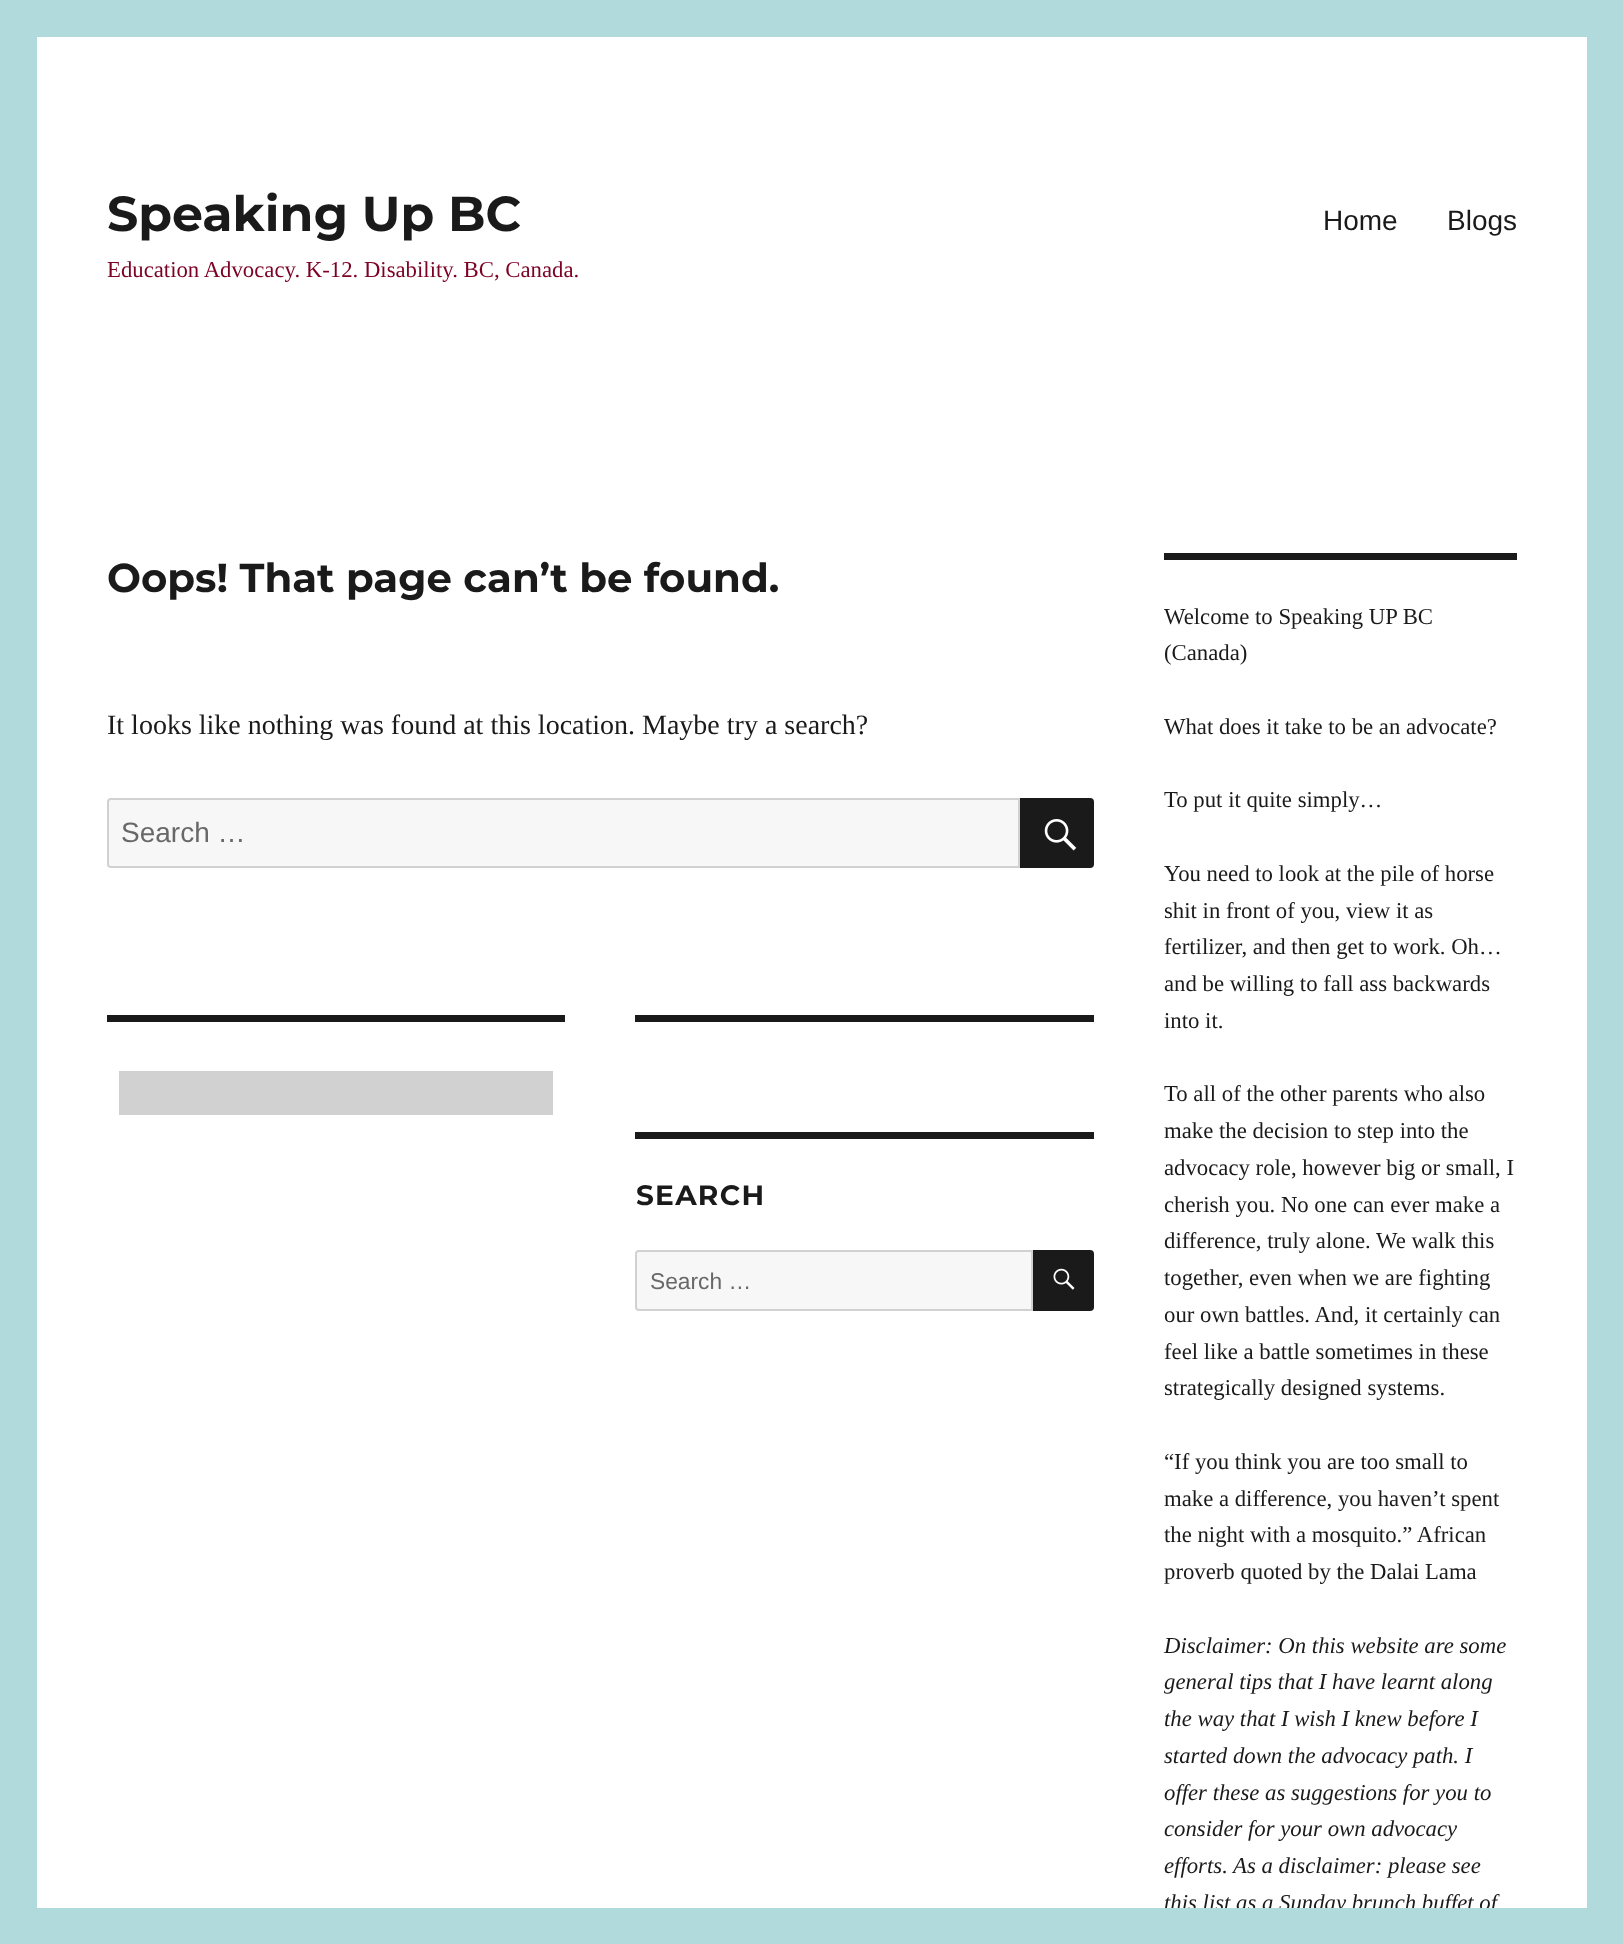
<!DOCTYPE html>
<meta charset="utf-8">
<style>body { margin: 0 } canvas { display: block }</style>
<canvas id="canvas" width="1623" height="1944"></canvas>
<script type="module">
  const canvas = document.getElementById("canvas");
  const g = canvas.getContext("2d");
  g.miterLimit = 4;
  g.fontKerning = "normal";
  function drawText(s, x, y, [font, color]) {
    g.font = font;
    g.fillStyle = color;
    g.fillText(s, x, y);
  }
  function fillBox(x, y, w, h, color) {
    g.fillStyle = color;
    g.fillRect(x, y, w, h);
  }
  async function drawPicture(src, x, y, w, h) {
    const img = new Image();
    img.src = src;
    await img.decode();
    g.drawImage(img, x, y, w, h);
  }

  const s1 = ["100 49px Montserrat", "#1A1A1A"];
  const s2 = ["22.75px Liberation Serif", "#7C0225"];
  const s3 = ["28px Liberation Sans", "#1A1A1A"];
  const s4 = ["100 40.25px Montserrat", "#1A1A1A"];
  const s5 = ["28px Liberation Serif", "#1A1A1A"];
  const s6 = ["28px Liberation Sans", "#686868"];
  const s7 = ["100 28px Montserrat", "#1A1A1A"];
  const s8 = ["22.75px Liberation Sans", "#686868"];
  const s9 = ["22.75px Liberation Serif", "#1A1A1A"];
  const s10 = ["italic 22.75px Liberation Serif", "#1A1A1A"];

  fillBox(0, 0, 1623, 1944, "#B1DADD");
  fillBox(37, 37, 1550, 1871, "#FFFFFF");
  drawText("Speaking Up BC", 107, 231, s1);
  drawText("Education Advocacy. K-12. Disability. BC, Canada.", 107, 277, s2);
  drawText("Home", 1323, 230, s3);
  drawText("Blogs", 1447, 230, s3);
  drawText("Oops! That page can’t be found.", 107, 592, s4);
  drawText("It looks like nothing was found at this location. Maybe try a search?", 107, 734, s5);
  g.fillStyle = "#F7F7F7";
  g.beginPath();
  g.roundRect(108, 799, 911, 68, [3, 0, 0, 3]);
  g.fill();
  g.strokeStyle = "#D1D1D1";
  g.lineWidth = 2;
  g.stroke();
  drawText("Search …", 121, 842, s6);
  g.fillStyle = "#1A1A1A";
  g.beginPath();
  g.roundRect(1020, 798, 74, 70, [0, 4, 4, 0]);
  g.fill();
  await drawPicture("pic1.png", 1044, 819, 33, 32);
  fillBox(107, 1015, 458, 7, "#1A1A1A");
  fillBox(119, 1071, 434, 44, "#D1D1D1");
  fillBox(635, 1015, 459, 7, "#1A1A1A");
  fillBox(635, 1132, 459, 7, "#1A1A1A");
  g.letterSpacing = "1.25px";
  drawText("SEARCH", 636, 1205, s7);
  g.fillStyle = "#F7F7F7";
  g.beginPath();
  g.roundRect(636, 1251, 396, 59, [3, 0, 0, 3]);
  g.fill();
  g.stroke();
  g.letterSpacing = "0px";
  drawText("Search …", 650, 1289, s8);
  g.fillStyle = "#1A1A1A";
  g.beginPath();
  g.roundRect(1033, 1250, 61, 61, [0, 4, 4, 0]);
  g.fill();
  await drawPicture("pic2.png", 1053, 1268, 22, 22);
  fillBox(1164, 553, 353, 7, "#1A1A1A");
  drawText("Welcome to Speaking UP BC", 1164, 624, s9);
  drawText("(Canada)", 1164, 660, s9);
  drawText("What does it take to be an advocate?", 1164, 734, s9);
  drawText("To put it quite simply…", 1164, 807, s9);
  drawText("You need to look at the pile of horse", 1164, 881, s9);
  drawText("shit in front of you, view it as", 1164, 918, s9);
  drawText("fertilizer, and then get to work. Oh…", 1164, 954, s9);
  drawText("and be willing to fall ass backwards", 1164, 991, s9);
  drawText("into it.", 1164, 1028, s9);
  drawText("To all of the other parents who also", 1164, 1101, s9);
  drawText("make the decision to step into the", 1164, 1138, s9);
  drawText("advocacy role, however big or small, I", 1164, 1175, s9);
  drawText("cherish you. No one can ever make a", 1164, 1212, s9);
  drawText("difference, truly alone. We walk this", 1164, 1248, s9);
  drawText("together, even when we are fighting", 1164, 1285, s9);
  drawText("our own battles. And, it certainly can", 1164, 1322, s9);
  drawText("feel like a battle sometimes in these", 1164, 1359, s9);
  drawText("strategically designed systems.", 1164, 1395, s9);
  drawText("“If you think you are too small to", 1164, 1469, s9);
  drawText("make a difference, you haven’t spent", 1164, 1506, s9);
  drawText("the night with a mosquito.” African", 1164, 1542, s9);
  drawText("proverb quoted by the Dalai Lama", 1164, 1579, s9);
  drawText("Disclaimer: On this website are some", 1164, 1653, s10);
  drawText("general tips that I have learnt along", 1164, 1689, s10);
  drawText("the way that I wish I knew before I", 1164, 1726, s10);
  drawText("started down the advocacy path. I", 1164, 1763, s10);
  drawText("offer these as suggestions for you to", 1164, 1800, s10);
  drawText("consider for your own advocacy", 1164, 1836, s10);
  drawText("efforts. As a disclaimer: please see", 1164, 1873, s10);
  drawText("this list as a Sunday brunch buffet of", 1164, 1910, s10);
  fillBox(1165, 1908, 330, 7, "#B1DADD");
</script>
